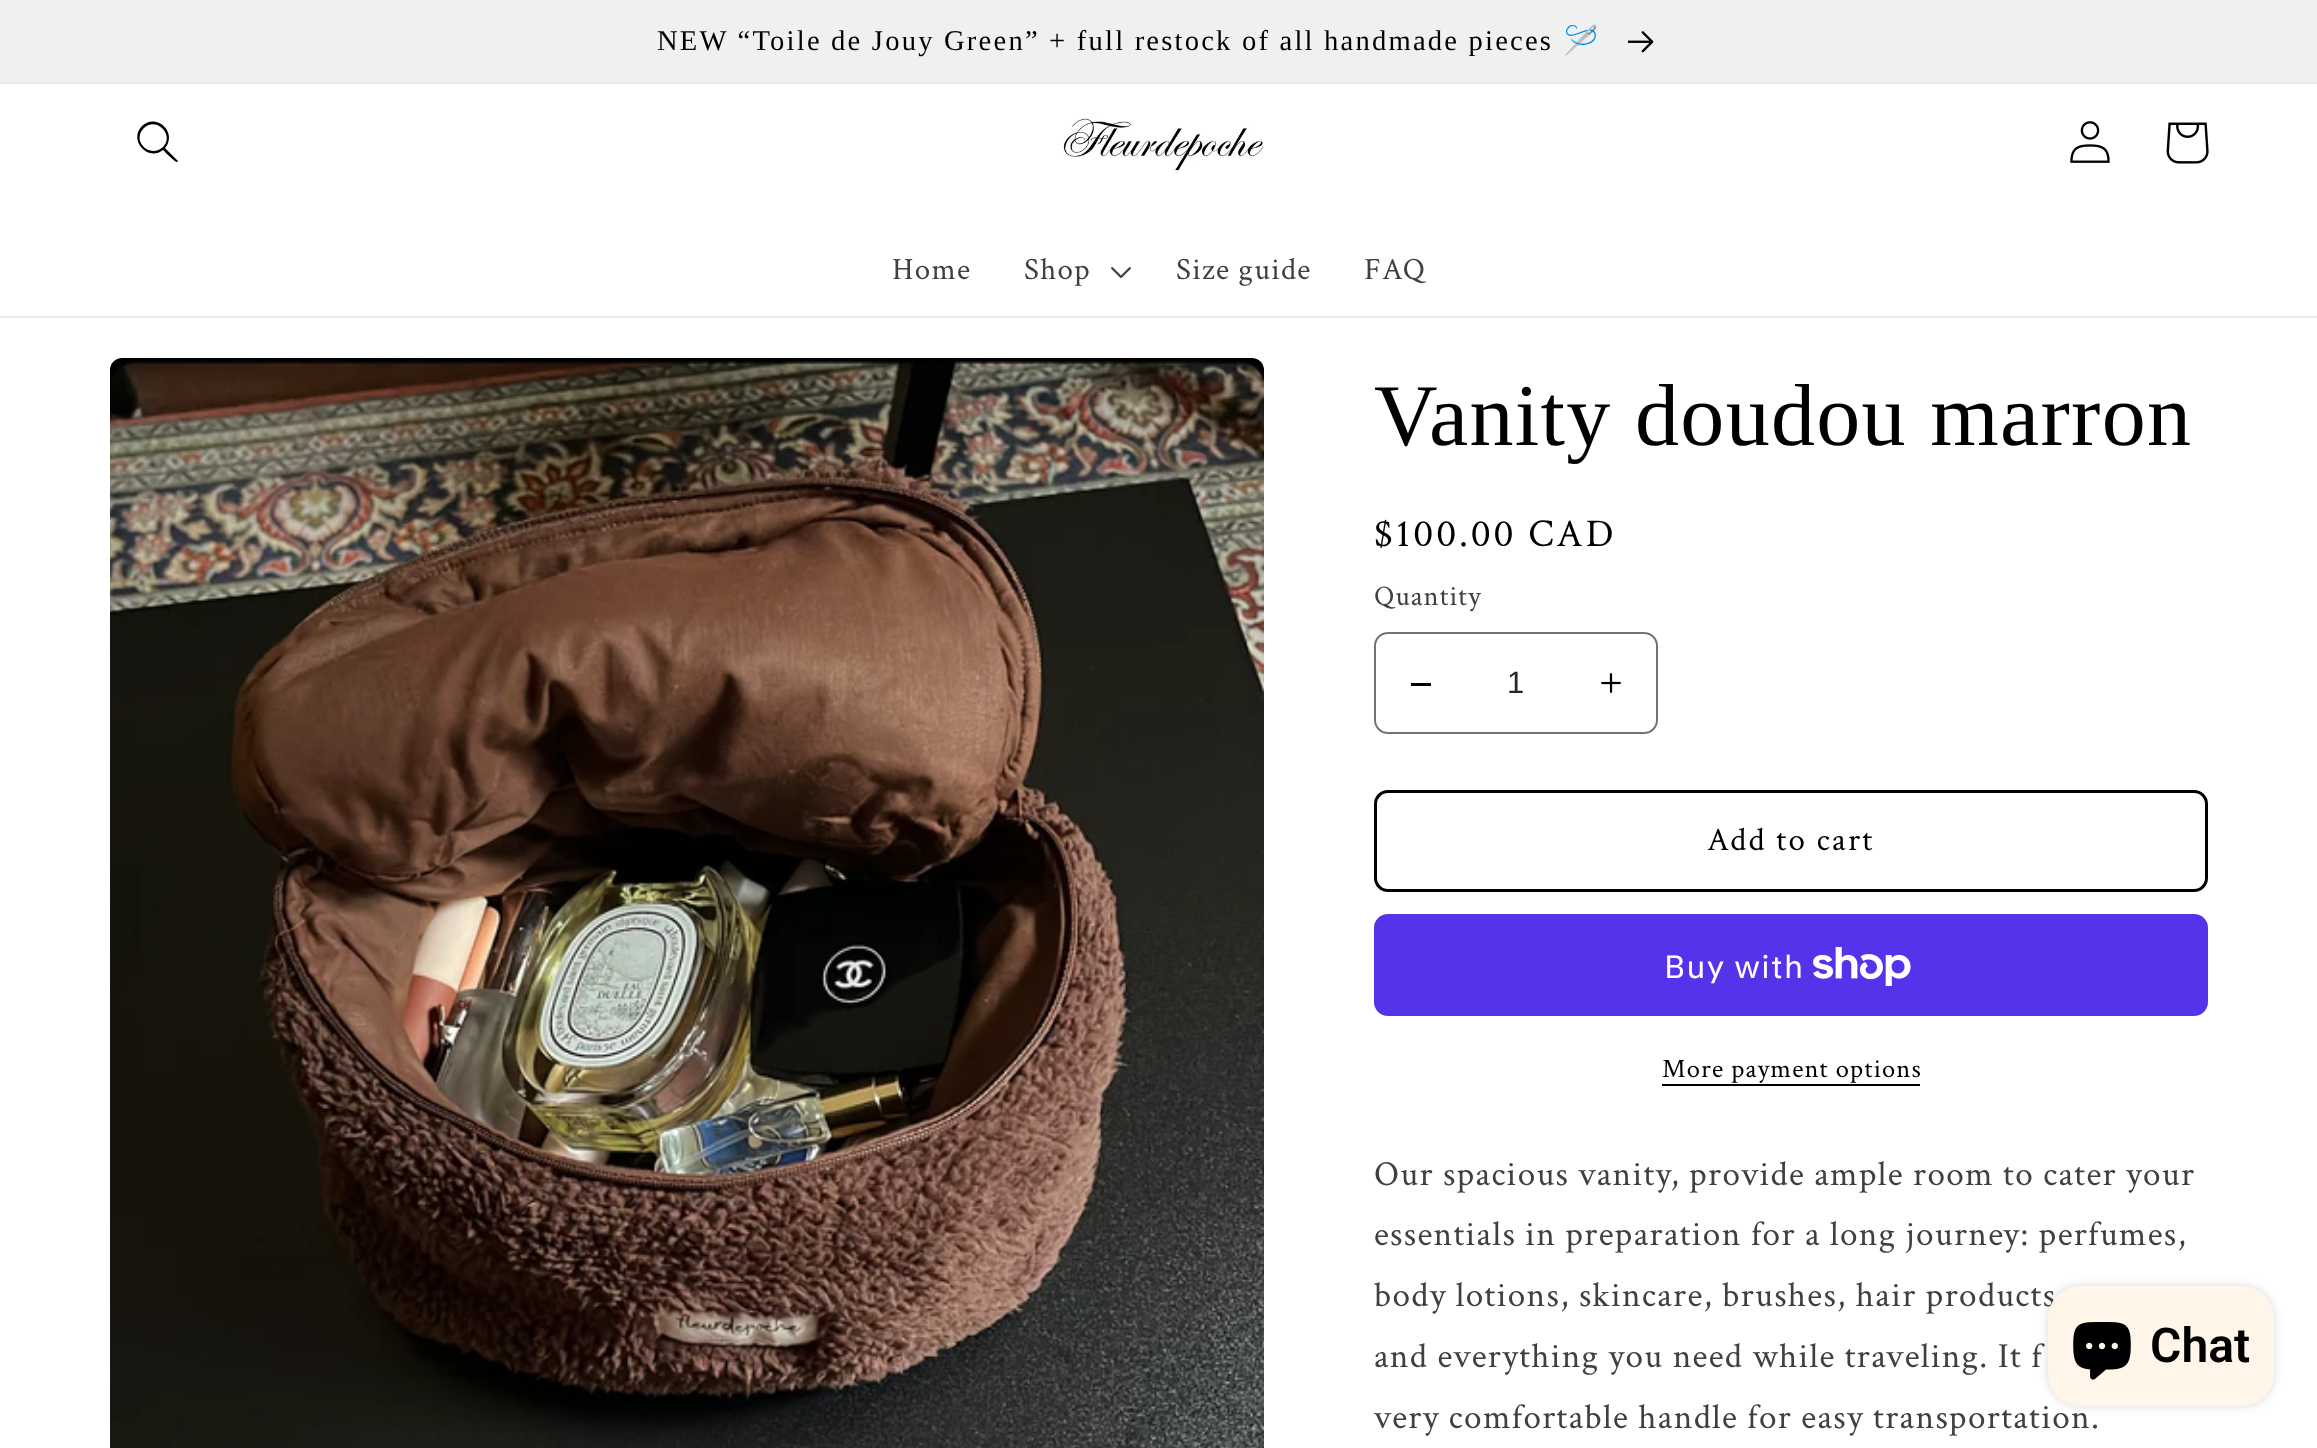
<!DOCTYPE html>
<meta charset="utf-8">
<style>body { margin: 0 } canvas { display: block }</style>
<canvas id="canvas" width="2317" height="1448"></canvas>
<script type="module">
  const canvas = document.getElementById("canvas");
  const g = canvas.getContext("2d");
  g.miterLimit = 4;
  g.fontKerning = "normal";
  function drawText(s, x, y, [font, color]) {
    g.font = font;
    g.fillStyle = color;
    g.fillText(s, x, y);
  }
  function fillBox(x, y, w, h, color) {
    g.fillStyle = color;
    g.fillRect(x, y, w, h);
  }
  function fillRounded(x, y, w, h, r, color) {
    g.fillStyle = color;
    g.beginPath();
    g.roundRect(x, y, w, h, r);
    g.fill();
  }
  async function drawPicture(src, x, y, w, h) {
    const img = new Image();
    img.src = src;
    await img.decode();
    g.drawImage(img, x, y, w, h);
  }

  const s1 = ["28.6px Liberation Serif", "#000000"];
  const s2 = ["28.6px Noto Color Emoji", "#000000"];
  const s3 = ["31px Crimson Text", "#404040"];
  const s4 = ["88px Liberation Serif", "#000000"];
  const s5 = ["39.5px Crimson Text", "#000000"];
  const s6 = ["28.6px Crimson Text", "#404040"];
  const s7 = ["31px Liberation Sans", "#262626"];
  const s8 = ["33px Crimson Text", "#000000"];
  const s9 = ["32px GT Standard", "#FFFFFF"];
  const s10 = ["26.5px Crimson Text", "#000000"];
  const s11 = ["35.2px Crimson Text", "#404040"];
  const s12 = ["600 48px Roboto", "#000000"];

  fillBox(0, 0, 2317, 1448, "#FFFFFF");
  fillBox(0, 82, 2317, 2, "#EBEBEB");
  fillBox(0, 0, 2317, 82, "#F0F0F0");
  g.letterSpacing = "2.2px";
  drawText("NEW “Toile de Jouy Green” + full restock of all handmade pieces", 657, 50, s1);
  drawText("🪡", 1563, 50, s2);
  await drawPicture("pic1.png", 1628, 31, 26, 22);
  fillBox(0, 316, 2317, 2, "#EBEBEB");
  g.fillStyle = "#000000";
  g.beginPath();
  g.moveTo(163, 147);
  g.bezierCurveTo(150, 159, 131, 141, 144, 128);
  g.bezierCurveTo(156, 116, 175, 135, 163, 147);
  g.closePath();
  g.moveTo(163, 150);
  g.bezierCurveTo(148, 162, 128, 140, 142, 126);
  g.bezierCurveTo(157, 112, 178, 133, 165, 148);
  g.lineTo(178, 161);
  g.lineTo(177, 162);
  g.bezierCurveTo(176, 163, 165, 152, 163, 150);
  g.closePath();
  g.fill("evenodd");
  await drawPicture("pic2.png", 1063, 118, 201, 53);
  await drawPicture("pic3.png", 2070, 121, 40, 42);
  await drawPicture("pic4.png", 2166, 122, 43, 42);
  g.letterSpacing = "1.32px";
  drawText("Home", 892, 279, s3);
  drawText("Shop", 1024, 279, s3);
  await drawPicture("pic5.png", 1111, 267, 20, 11);
  drawText("Size guide", 1176, 279, s3);
  drawText("FAQ", 1364, 279, s3);
  await drawPicture("pic6.png", 110, 358, 1154, 1090);
  drawText("Vanity doudou marron", 1374, 445, s4);
  g.letterSpacing = "2.9px";
  drawText("$100.00 CAD", 1374, 546, s5);
  g.letterSpacing = "1px";
  drawText("Quantity", 1374, 605, s6);
  fillBox(1411, 683, 20, 3, "#000000");
  await drawPicture("pic7.png", 1601, 673, 20, 20);
  g.beginPath();
  g.roundRect(1375, 633, 282, 100, 13);
  g.strokeStyle = "#737373";
  g.lineWidth = 2;
  g.stroke();
  g.letterSpacing = "0px";
  drawText("1", 1507, 693, s7);
  g.beginPath();
  g.roundRect(1375.5, 791.5, 831, 99, 12.5);
  g.strokeStyle = "#000000";
  g.lineWidth = 3;
  g.stroke();
  g.letterSpacing = "2.2px";
  drawText("Add to cart", 1707, 850, s8);
  fillRounded(1374, 914, 834, 102, 14, "#5433EB");
  g.letterSpacing = "1.32px";
  drawText("Buy with", 1664, 978, s9);
  await drawPicture("pic8.png", 1813, 947, 98, 39);
  g.letterSpacing = "1.1px";
  drawText("More payment options", 1662, 1077, s10);
  fillBox(1662, 1084, 258, 2, "#000000");
  g.letterSpacing = "1.32px";
  drawText("Our spacious vanity, provide ample room to cater your", 1374, 1185, s11);
  drawText("essentials in preparation for a long journey: perfumes,", 1374, 1245, s11);
  drawText("body lotions, skincare, brushes, hair products", 1374, 1306, s11);
  drawText("and everything you need while traveling. It f", 1374, 1367, s11);
  drawText("very comfortable handle for easy transportation.", 1374, 1428, s11);
  g.fillStyle = "rgba(0, 0, 0, 0.15)";
  g.filter = "blur(5px)";
  g.beginPath();
  g.roundRect(2048, 1286, 226, 120, 32);
  g.fill();
  g.filter = "none";
  fillRounded(2048, 1286, 226, 120, 32, "#FFF5E8");
  await drawPicture("pic9.png", 2073, 1322, 58, 58);
  g.letterSpacing = "0px";
  drawText("Chat", 2150, 1362, s12);
</script>
